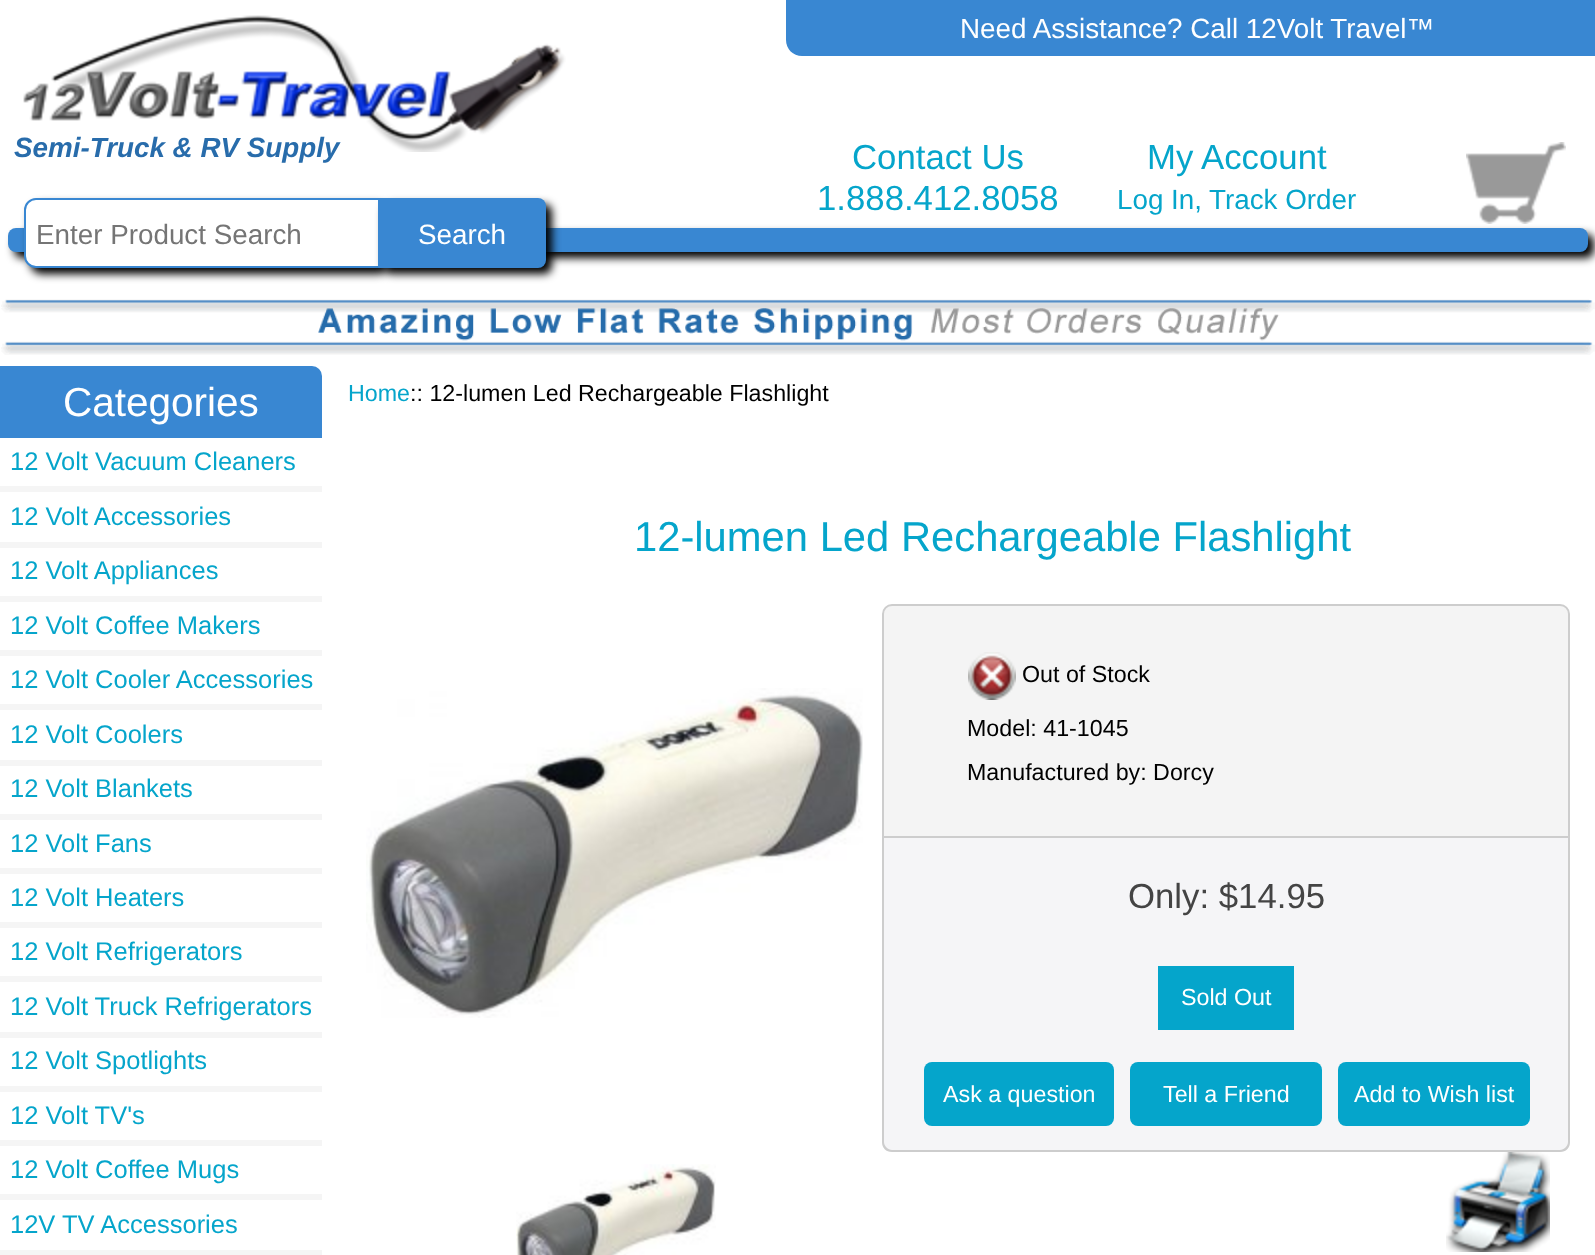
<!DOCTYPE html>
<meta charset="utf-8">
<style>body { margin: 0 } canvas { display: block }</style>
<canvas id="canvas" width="1595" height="1255"></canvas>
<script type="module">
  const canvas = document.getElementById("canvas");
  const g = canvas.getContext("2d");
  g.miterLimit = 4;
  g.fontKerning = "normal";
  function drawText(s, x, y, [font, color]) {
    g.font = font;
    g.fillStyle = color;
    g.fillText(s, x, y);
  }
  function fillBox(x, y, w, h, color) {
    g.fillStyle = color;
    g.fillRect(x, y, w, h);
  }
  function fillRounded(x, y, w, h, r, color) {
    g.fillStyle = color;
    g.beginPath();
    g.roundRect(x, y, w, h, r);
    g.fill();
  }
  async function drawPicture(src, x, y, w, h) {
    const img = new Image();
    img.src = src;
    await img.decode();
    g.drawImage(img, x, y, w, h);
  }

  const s1 = ["27.8px Liberation Sans", "#FFFFFF"];
  const s2 = ["italic bold 27.8px Liberation Sans", "#286CAB"];
  const s3 = ["34.75px Liberation Sans", "#05A5CB"];
  const s4 = ["27.8px Liberation Sans", "#05A5CB"];
  const s5 = ["27.8px Liberation Sans", "#757575"];
  const s6 = ["40.5px Liberation Sans", "#FFFFFF"];
  const s7 = ["25.5px Liberation Sans", "#05A5CB"];
  const s8 = ["23.25px Liberation Sans", "#05A5CB"];
  const s9 = ["23.25px Liberation Sans", "#000000"];
  const s10 = ["41.75px Liberation Sans", "#05A5CB"];
  const s11 = ["34.75px Liberation Sans", "#444444"];
  const s12 = ["23.25px Liberation Sans", "#FFFFFF"];

  fillBox(0, 0, 1595, 1255, "#FFFFFF");
  g.fillStyle = "#3987D2";
  g.beginPath();
  g.moveTo(786, 0);
  g.lineTo(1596, 0);
  g.lineTo(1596, 56);
  g.lineTo(802, 56);
  g.bezierCurveTo(793, 56, 786, 49, 786, 40);
  g.closePath();
  g.fill();
  drawText("Need Assistance? Call 12Volt Travel™", 960, 38, s1);
  await drawPicture("pic1.png", 23, 15, 543, 137);
  drawText("Semi-Truck & RV Supply", 14, 157, s2);
  drawText("Contact Us", 852, 169, s3);
  drawText("1.888.412.8058", 817, 210, s3);
  drawText("My Account", 1147, 169, s3);
  drawText("Log In,", 1117, 209, s4);
  drawText("Track Order", 1209, 209, s4);
  await drawPicture("pic2.png", 1466, 142, 100, 82);
  g.fillStyle = "#000000";
  g.filter = "blur(4px)";
  g.beginPath();
  g.roundRect(14, 234, 1580, 24, 8);
  g.fill();
  g.filter = "none";
  fillRounded(8, 228, 1580, 24, 8, "#3987D2");
  g.fillStyle = "#000000";
  g.filter = "blur(4px)";
  g.beginPath();
  g.roundRect(30, 204, 360, 70, 12);
  g.fill();
  g.filter = "none";
  g.fillStyle = "#FFFFFF";
  g.beginPath();
  g.roundRect(25, 199, 358, 68, [11, 0, 0, 11]);
  g.fill();
  g.strokeStyle = "#3987D2";
  g.lineWidth = 2;
  g.stroke();
  drawText("Enter Product Search", 36, 244, s5);
  g.fillStyle = "#000000";
  g.filter = "blur(4px)";
  g.beginPath();
  g.roundRect(384, 204, 168, 70, 8);
  g.fill();
  g.filter = "none";
  g.fillStyle = "#3987D2";
  g.beginPath();
  g.roundRect(378, 198, 168, 70, [0, 8, 8, 0]);
  g.fill();
  drawText("Search", 418, 244, s1);
  await drawPicture("pic3.png", 1, 299, 1594, 56);
  g.fillStyle = "#3987D2";
  g.beginPath();
  g.roundRect(0, 366, 322, 72, [0, 10, 0, 0]);
  g.fill();
  drawText("Categories", 63, 416, s6);
  fillBox(0, 486, 322, 6, "#F5F5F5");
  drawText("12 Volt Vacuum Cleaners", 10, 470, s7);
  fillBox(0, 542, 322, 6, "#F5F5F5");
  drawText("12 Volt Accessories", 10, 525, s7);
  fillBox(0, 596, 322, 6, "#F5F5F5");
  drawText("12 Volt Appliances", 10, 579, s7);
  fillBox(0, 650, 322, 6, "#F5F5F5");
  drawText("12 Volt Coffee Makers", 10, 634, s7);
  fillBox(0, 704, 322, 6, "#F5F5F5");
  drawText("12 Volt Cooler Accessories", 10, 688, s7);
  fillBox(0, 760, 322, 6, "#F5F5F5");
  drawText("12 Volt Coolers", 10, 743, s7);
  fillBox(0, 814, 322, 6, "#F5F5F5");
  drawText("12 Volt Blankets", 10, 797, s7);
  fillBox(0, 868, 322, 6, "#F5F5F5");
  drawText("12 Volt Fans", 10, 852, s7);
  fillBox(0, 922, 322, 6, "#F5F5F5");
  drawText("12 Volt Heaters", 10, 906, s7);
  fillBox(0, 976, 322, 6, "#F5F5F5");
  drawText("12 Volt Refrigerators", 10, 960, s7);
  fillBox(0, 1032, 322, 6, "#F5F5F5");
  drawText("12 Volt Truck Refrigerators", 10, 1015, s7);
  fillBox(0, 1086, 322, 6, "#F5F5F5");
  drawText("12 Volt Spotlights", 10, 1069, s7);
  fillBox(0, 1140, 322, 6, "#F5F5F5");
  drawText("12 Volt TV's", 10, 1124, s7);
  fillBox(0, 1194, 322, 6, "#F5F5F5");
  drawText("12 Volt Coffee Mugs", 10, 1178, s7);
  fillBox(0, 1250, 322, 5, "#F5F5F5");
  drawText("12V TV Accessories", 10, 1233, s7);
  drawText("Home", 348, 401, s8);
  drawText(":: 12-lumen Led Rechargeable Flashlight", 410, 401, s9);
  drawText("12-lumen Led Rechargeable Flashlight", 634, 551, s10);
  await drawPicture("pic4.png", 366, 688, 497, 330);
  await drawPicture("pic5.png", 516, 1164, 200, 91);
  g.fillStyle = "#F4F4F4";
  g.beginPath();
  g.roundRect(883, 605, 686, 232, [9, 9, 0, 0]);
  g.fill();
  g.strokeStyle = "#CDCDCD";
  g.stroke();
  await drawPicture("pic6.png", 968, 652, 48, 48);
  drawText("Out of Stock", 1022, 682, s9);
  drawText("Model: 41-1045", 967, 736, s9);
  drawText("Manufactured by: Dorcy", 967, 780, s9);
  g.fillStyle = "#F5F5F7";
  g.beginPath();
  g.roundRect(882, 838, 688, 314, [0, 0, 10, 10]);
  g.fill();
  g.fillStyle = "#CDCDCD";
  g.beginPath();
  g.moveTo(882, 838);
  g.lineTo(1570, 838);
  g.lineTo(1570, 1142);
  g.bezierCurveTo(1570, 1148, 1566, 1152, 1560, 1152);
  g.lineTo(892, 1152);
  g.bezierCurveTo(886, 1152, 882, 1148, 882, 1142);
  g.closePath();
  g.moveTo(884, 838);
  g.lineTo(1568, 838);
  g.lineTo(1568, 1142);
  g.bezierCurveTo(1568, 1146, 1564, 1150, 1560, 1150);
  g.lineTo(892, 1150);
  g.bezierCurveTo(888, 1150, 884, 1146, 884, 1142);
  g.closePath();
  g.fill("evenodd");
  drawText("Only: $14.95", 1128, 908, s11);
  fillBox(1158, 966, 136, 64, "#05A5CB");
  drawText("Sold Out", 1181, 1005, s12);
  fillRounded(924, 1062, 190, 64, 8, "#05A5CB");
  drawText("Ask a question", 943, 1102, s12);
  fillRounded(1130, 1062, 192, 64, 8, "#05A5CB");
  drawText("Tell a Friend", 1163, 1102, s12);
  fillRounded(1338, 1062, 192, 64, 8, "#05A5CB");
  drawText("Add to Wish list", 1354, 1102, s12);
  await drawPicture("pic7.png", 1446, 1152, 104, 100);
</script>
